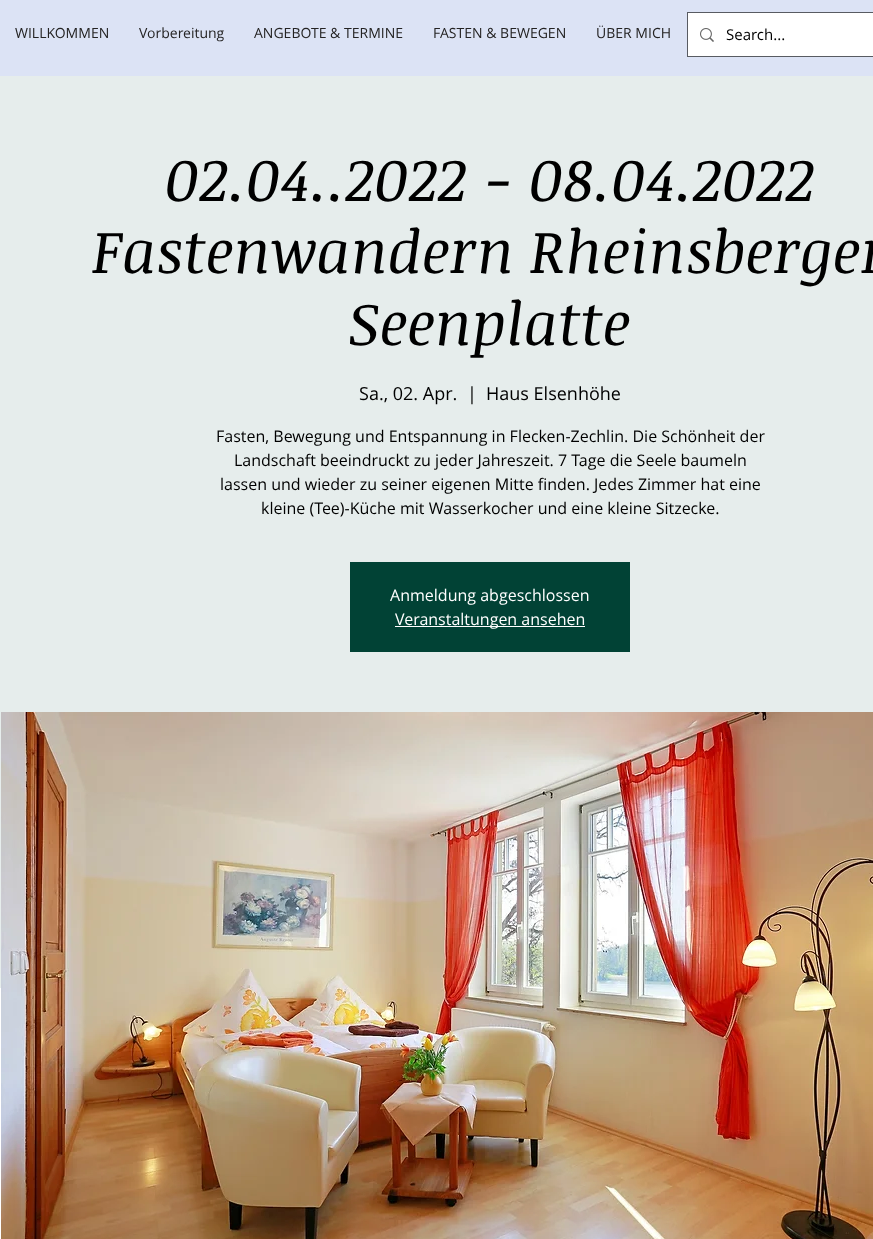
<!DOCTYPE html>
<meta charset="utf-8">
<style>body { margin: 0 } canvas { display: block }</style>
<canvas id="canvas" width="873" height="1239"></canvas>
<script type="module">
  const canvas = document.getElementById("canvas");
  const g = canvas.getContext("2d");
  g.miterLimit = 4;
  g.fontKerning = "normal";
  function drawText(s, x, y, [font, color]) {
    g.font = font;
    g.fillStyle = color;
    g.fillText(s, x, y);
  }
  function fillBox(x, y, w, h, color) {
    g.fillStyle = color;
    g.fillRect(x, y, w, h);
  }
  async function drawPicture(src, x, y, w, h) {
    const img = new Image();
    img.src = src;
    await img.decode();
    g.drawImage(img, x, y, w, h);
  }

  const s1 = ["14px Open Sans", "#242323"];
  const s2 = ["15px Open Sans", "#000000"];
  const s3 = ["italic 60px Noticia Text", "#000000"];
  const s4 = ["18px Open Sans", "#000000"];
  const s5 = ["16px Open Sans", "#000000"];
  const s6 = ["16px Open Sans", "#FFFFFF"];

  fillBox(0, 0, 873, 1239, "#DCE3F5");
  drawText("WILLKOMMEN", 15, 38, s1);
  drawText("Vorbereitung", 139, 38, s1);
  drawText("ANGEBOTE & TERMINE", 254, 38, s1);
  drawText("FASTEN & BEWEGEN", 433, 38, s1);
  drawText("ÜBER MICH", 596, 38, s1);
  g.strokeStyle = "#585B62";
  g.strokeRect(687.5, 12.5, 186, 44);
  fillBox(688, 13, 185, 43, "#FFFFFF");
  await drawPicture("pic1.png", 700, 28, 14, 14);
  drawText("Search...", 726, 40, s2);
  fillBox(0, 76, 873, 912, "#E6EDEC");
  drawText("02.04..2022 - 08.04.2022", 165, 201, s3);
  drawText("Fastenwandern Rheinsberger", 92, 273, s3);
  drawText("Seenplatte", 349, 345, s3);
  drawText("Sa., 02. Apr.", 359, 400, s4);
  drawText("|", 467, 400, s4);
  drawText("Haus Elsenhöhe", 486, 400, s4);
  drawText("Fasten, Bewegung und Entspannung in Flecken-Zechlin. Die Schönheit der", 216, 442, s5);
  drawText("Landschaft beeindruckt zu jeder Jahreszeit. 7 Tage die Seele baumeln", 234, 466, s5);
  drawText("lassen und wieder zu seiner eigenen Mitte finden. Jedes Zimmer hat eine", 220, 490, s5);
  drawText("kleine (Tee)-Küche mit Wasserkocher und eine kleine Sitzecke.", 261, 514, s5);
  fillBox(350, 562, 280, 90, "#014235");
  drawText("Anmeldung abgeschlossen", 390, 601, s6);
  fillBox(395, 626, 190, 1, "#FFFFFF");
  drawText("Veranstaltungen ansehen", 395, 625, s6);
  await drawPicture("pic2.png", 1, 712, 872, 527);
  fillBox(0, 988, 1, 251, "#FFFFFF");
</script>
